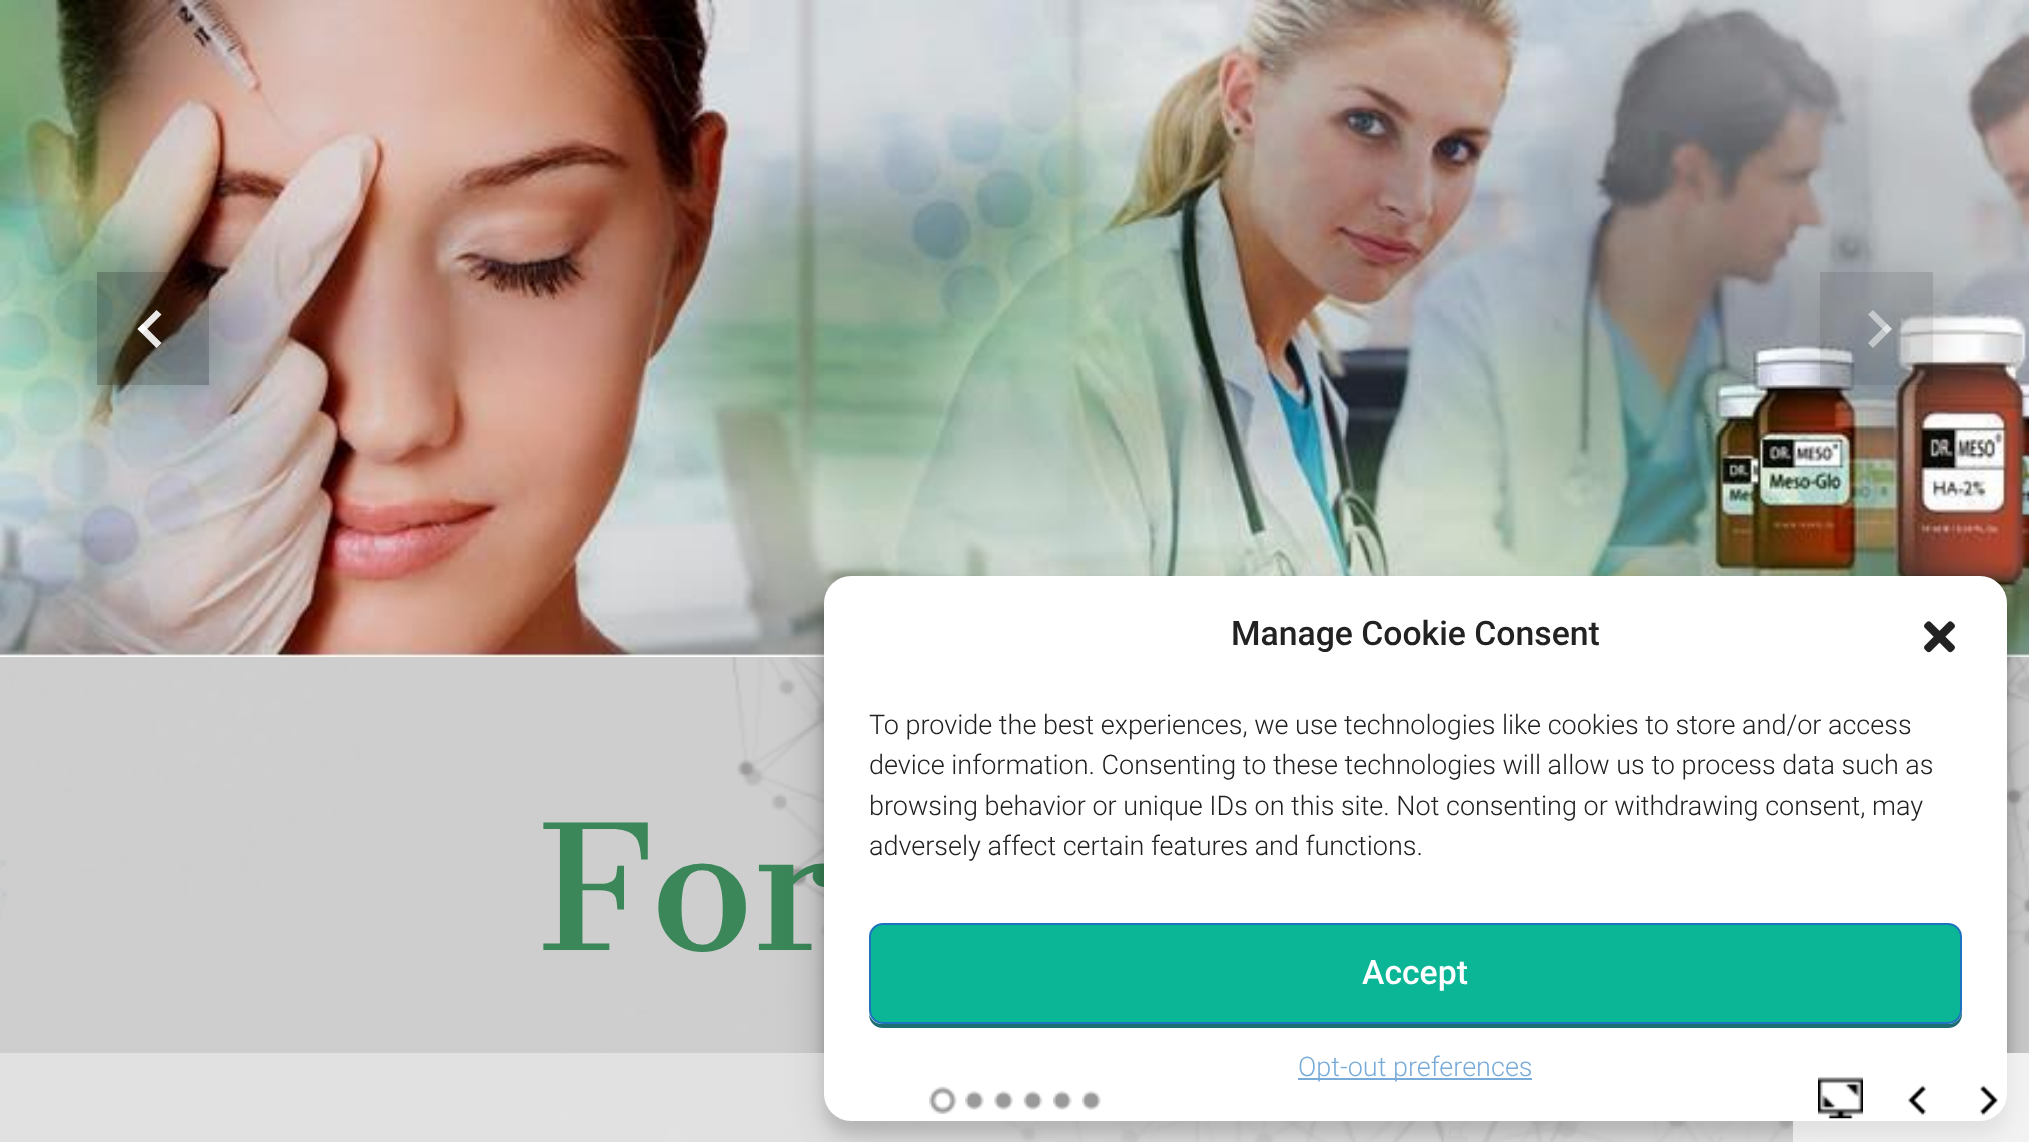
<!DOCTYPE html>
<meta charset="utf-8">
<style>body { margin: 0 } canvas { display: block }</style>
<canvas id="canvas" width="2029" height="1142"></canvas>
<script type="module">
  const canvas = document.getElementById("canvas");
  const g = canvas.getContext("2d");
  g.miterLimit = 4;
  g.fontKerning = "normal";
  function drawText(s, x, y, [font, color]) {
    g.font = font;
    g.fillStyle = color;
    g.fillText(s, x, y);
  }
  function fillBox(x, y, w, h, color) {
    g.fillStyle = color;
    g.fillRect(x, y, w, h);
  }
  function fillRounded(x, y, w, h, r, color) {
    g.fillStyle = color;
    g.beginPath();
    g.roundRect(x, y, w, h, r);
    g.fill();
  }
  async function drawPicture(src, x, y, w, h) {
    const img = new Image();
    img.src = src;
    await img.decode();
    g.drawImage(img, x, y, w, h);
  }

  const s1 = ["225px Sree Krushnadevaraya", "#3B8759"];
  const s2 = ["500 33.75px Roboto", "#222222"];
  const s3 = ["300 27px Roboto", "#222222"];
  const s4 = ["500 33.75px Roboto", "#FFFFFF"];
  const s5 = ["300 27px Roboto", "#1E73BE"];

  fillBox(0, 0, 2029, 1142, "#CECECE");
  await drawPicture("pic1.png", 0, 0, 2029, 657);
  g.save();
  g.beginPath();
  g.moveTo(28, 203);
  g.lineTo(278, 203);
  g.lineTo(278, 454);
  g.lineTo(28, 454);
  g.closePath();
  g.moveTo(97, 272);
  g.lineTo(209, 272);
  g.lineTo(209, 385);
  g.lineTo(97, 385);
  g.closePath();
  g.clip("evenodd");
  g.fillStyle = "rgba(0, 0, 0, 0.27)";
  g.filter = "blur(22.5px)";
  g.beginPath();
  g.rect(97, 272, 112, 113);
  g.fill();
  g.filter = "none";
  g.restore();
  fillBox(97, 272, 112, 113, "rgba(0, 0, 0, 0.27)");
  g.fillStyle = "rgba(255, 255, 255, 0.9)";
  g.beginPath();
  g.moveTo(156.5, 348);
  g.lineTo(137.5, 329);
  g.lineTo(142.5, 324);
  g.lineTo(161.5, 343);
  g.closePath();
  g.fill();
  g.beginPath();
  g.moveTo(142.5, 333.5);
  g.lineTo(137.5, 329);
  g.lineTo(156.5, 310);
  g.lineTo(161.5, 314.5);
  g.closePath();
  g.fill();
  g.save();
  g.beginPath();
  g.moveTo(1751, 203);
  g.lineTo(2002, 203);
  g.lineTo(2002, 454);
  g.lineTo(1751, 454);
  g.closePath();
  g.moveTo(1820, 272);
  g.lineTo(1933, 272);
  g.lineTo(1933, 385);
  g.lineTo(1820, 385);
  g.closePath();
  g.clip("evenodd");
  g.fillStyle = "rgba(0, 0, 0, 0.15)";
  g.filter = "blur(22.5px)";
  g.beginPath();
  g.rect(1820, 272, 113, 113);
  g.fill();
  g.filter = "none";
  g.restore();
  fillBox(1820, 272, 113, 113, "rgba(0, 0, 0, 0.15)");
  g.fillStyle = "rgba(255, 255, 255, 0.5)";
  g.beginPath();
  g.moveTo(1873, 310);
  g.lineTo(1892, 329);
  g.lineTo(1887, 333.5);
  g.lineTo(1868, 314.5);
  g.closePath();
  g.fill();
  g.beginPath();
  g.moveTo(1887, 324);
  g.lineTo(1892, 329);
  g.lineTo(1873, 348);
  g.lineTo(1868, 343);
  g.closePath();
  g.fill();
  await drawPicture("pic2.png", 0, 657, 2029, 485);
  drawText("For", 539, 950, s1);
  await drawPicture("pic3.png", 1443, 1127, 25, 15);
  g.fillStyle = "#C1C1C1";
  g.beginPath();
  g.moveTo(1722, 1136);
  g.lineTo(1723.5, 1138);
  g.lineTo(1716, 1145.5);
  g.lineTo(1714, 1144);
  g.closePath();
  g.moveTo(1710, 1136);
  g.lineTo(1717.5, 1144);
  g.lineTo(1716, 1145.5);
  g.lineTo(1708, 1138);
  g.closePath();
  g.fill();
  g.fillStyle = "rgba(0, 0, 0, 0.23)";
  g.filter = "blur(7px)";
  g.beginPath();
  g.roundRect(824, 590, 1183, 544, 27);
  g.fill();
  g.filter = "none";
  g.fillStyle = "rgba(0, 0, 0, 0.19)";
  g.filter = "blur(22.5px)";
  g.beginPath();
  g.roundRect(824, 599, 1183, 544, 27);
  g.fill();
  g.filter = "none";
  fillRounded(824, 576, 1183, 545, 27, "#FFFFFF");
  drawText("Manage Cookie Consent", 1231, 645, s2);
  await drawPicture("pic4.png", 1924, 621, 31, 32);
  drawText("To provide the best experiences, we use technologies like cookies to store and/or access", 869, 734, s3);
  drawText("device information. Consenting to these technologies will allow us to process data such as", 869, 774, s3);
  drawText("browsing behavior or unique IDs on this site. Not consenting or withdrawing consent, may", 869, 815, s3);
  drawText("adversely affect certain features and functions.", 869, 855, s3);
  g.fillStyle = "#1D6E72";
  g.beginPath();
  g.moveTo(869, 1014);
  g.bezierCurveTo(869, 1022, 875, 1028, 883, 1028);
  g.lineTo(1948, 1028);
  g.bezierCurveTo(1956, 1028, 1962, 1022, 1962, 1014);
  g.lineTo(1962, 1010);
  g.bezierCurveTo(1962, 1018, 1956, 1024, 1948, 1024);
  g.lineTo(882, 1024);
  g.bezierCurveTo(876, 1024, 871, 1020, 869, 1014);
  g.closePath();
  g.fill();
  g.fillStyle = "#0BB697";
  g.beginPath();
  g.roundRect(870, 924, 1091, 99, 13);
  g.fill();
  g.strokeStyle = "#1E73BE";
  g.lineWidth = 2;
  g.stroke();
  drawText("Accept", 1362, 984, s4);
  fillBox(1298, 1078, 234, 2, "#1E73BE");
  drawText("Opt-out preferences", 1298, 1076, s5);
  fillBox(0, 1053, 2029, 89, "rgba(255, 255, 255, 0.4)");
  await drawPicture("pic5.png", 929, 1086, 28, 28);
  await drawPicture("pic6.png", 965, 1090, 19, 20);
  await drawPicture("pic7.png", 994, 1090, 19, 20);
  await drawPicture("pic8.png", 1023, 1090, 20, 20);
  await drawPicture("pic9.png", 1053, 1090, 19, 20);
  await drawPicture("pic10.png", 1082, 1090, 19, 20);
  fillBox(1793, 1053, 236, 89, "rgba(255, 255, 255, 0.6)");
  await drawPicture("pic11.png", 1818, 1077, 45, 42);
  await drawPicture("pic12.png", 1908, 1085, 18, 31);
  await drawPicture("pic13.png", 1980, 1085, 18, 31);
</script>
